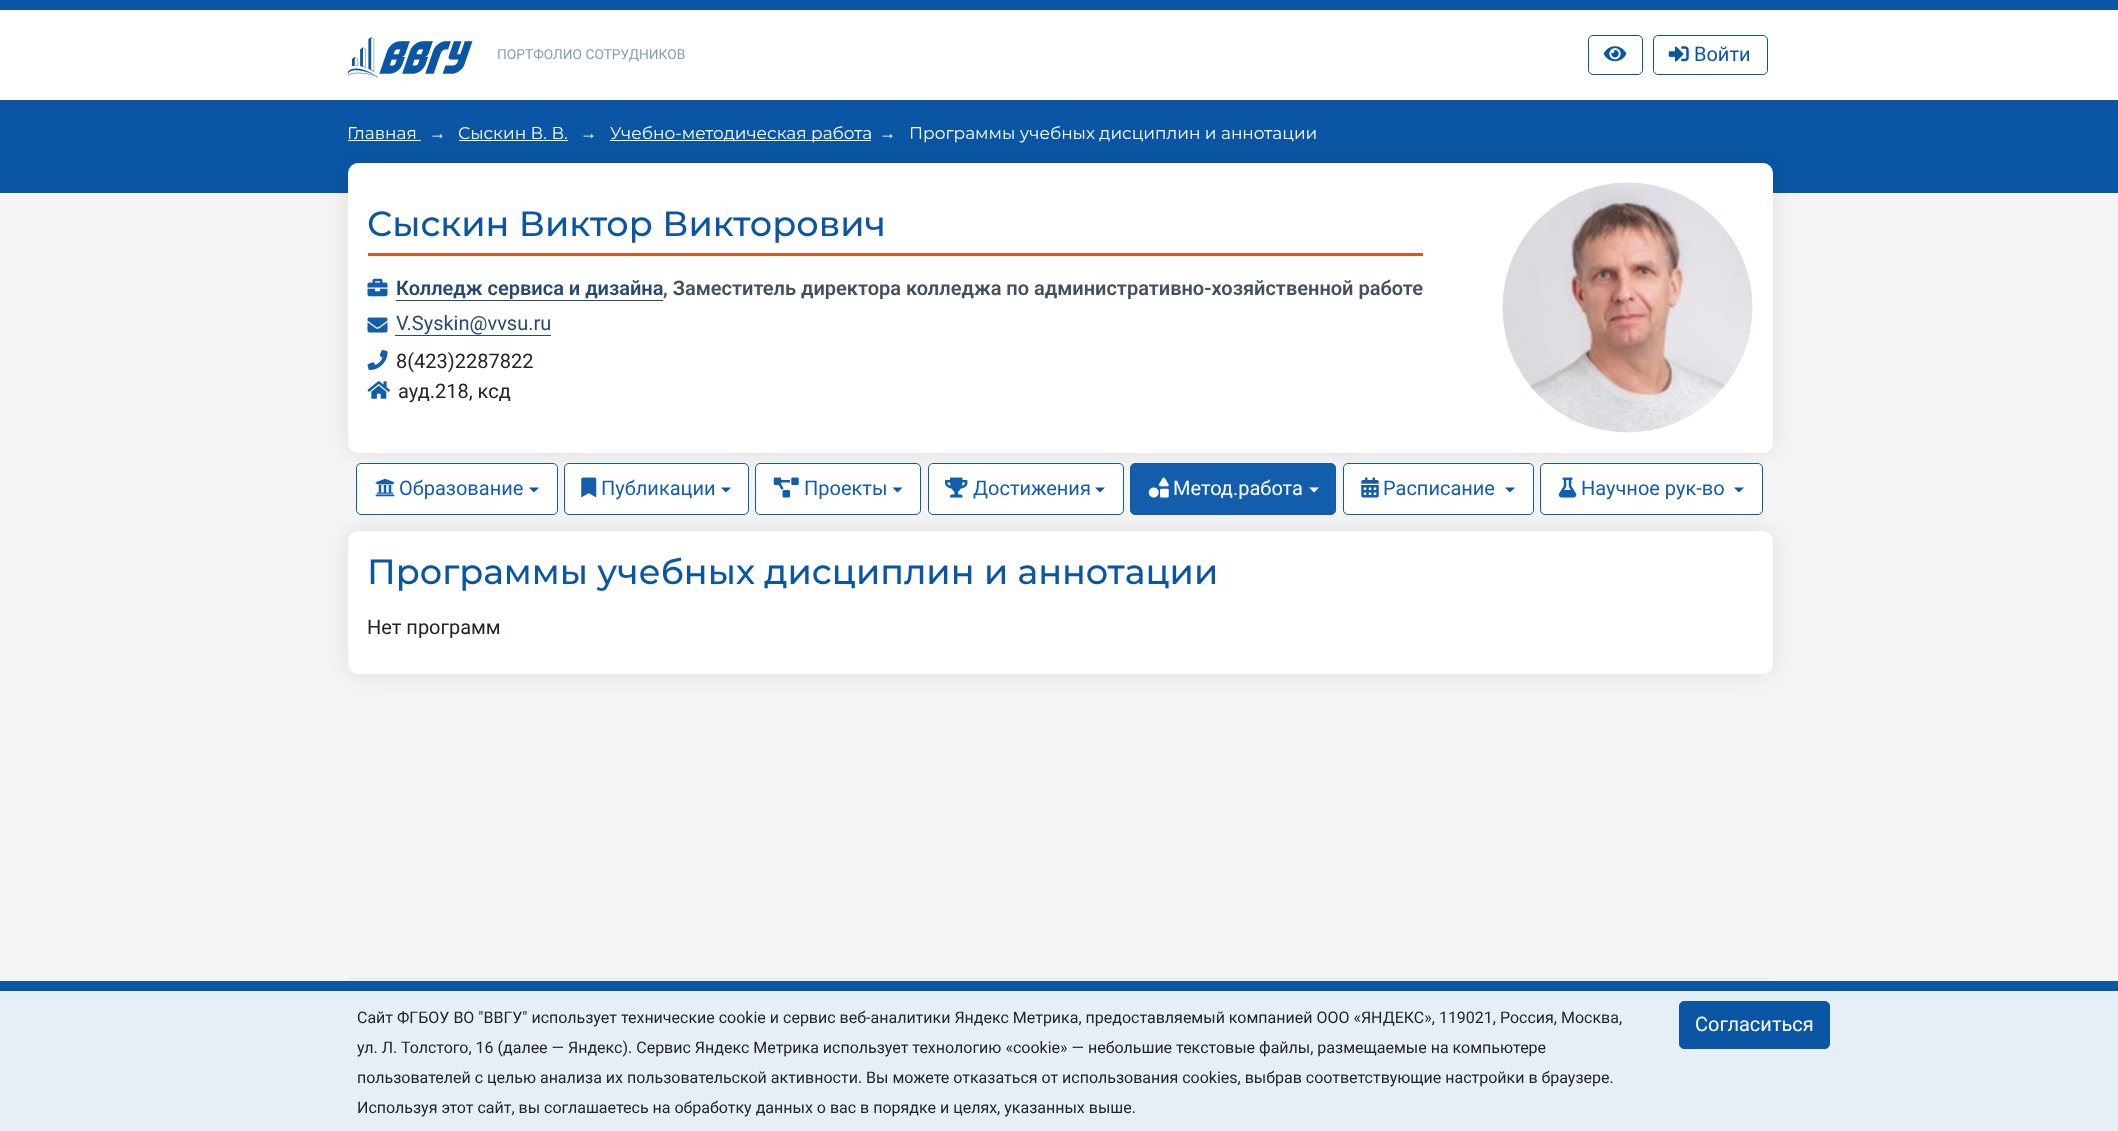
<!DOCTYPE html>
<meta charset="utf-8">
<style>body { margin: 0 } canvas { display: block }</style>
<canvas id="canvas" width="2118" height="1131"></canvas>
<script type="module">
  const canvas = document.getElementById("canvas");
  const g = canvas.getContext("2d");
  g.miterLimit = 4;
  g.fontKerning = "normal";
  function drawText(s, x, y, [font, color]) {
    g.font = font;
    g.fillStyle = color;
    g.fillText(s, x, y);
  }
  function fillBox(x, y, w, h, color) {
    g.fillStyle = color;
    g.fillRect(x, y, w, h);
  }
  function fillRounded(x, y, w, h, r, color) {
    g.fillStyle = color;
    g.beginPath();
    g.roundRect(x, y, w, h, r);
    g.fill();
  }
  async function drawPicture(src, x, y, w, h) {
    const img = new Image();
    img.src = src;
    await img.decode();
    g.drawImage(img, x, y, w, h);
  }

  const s1 = ["13.75px Roboto", "#859FB9"];
  const s2 = ["20px Roboto", "#0A56A4"];
  const s3 = ["17px Montserrat", "#FFFFFF"];
  const s4 = ["17px Liberation Sans", "#FFFFFF"];
  const s5 = ["500 35px Montserrat", "#0A56A4"];
  const s6 = ["600 20px Roboto", "#264A6F"];
  const s7 = ["600 20px Roboto", "#42505F"];
  const s8 = ["20px Roboto", "#264A6F"];
  const s9 = ["20px Roboto", "#212529"];
  const s10 = ["20px Roboto", "#125EAD"];
  const s11 = ["20px Roboto", "#FFFFFF"];
  const s12 = ["16px Roboto", "#212529"];

  fillBox(0, 0, 2118, 1131, "#F5F5F5");
  fillBox(0, 0, 2118, 10, "#0A56A4");
  fillBox(0, 10, 2118, 90, "#FFFFFF");
  await drawPicture("pic1.png", 348, 37, 125, 41);
  drawText("ПОРТФОЛИО СОТРУДНИКОВ", 497, 59, s1);
  g.beginPath();
  g.roundRect(1588.5, 35.5, 54, 39, 4.5);
  g.strokeStyle = "#0A56A4";
  g.stroke();
  await drawPicture("pic2.png", 1603, 46, 24, 16);
  g.beginPath();
  g.roundRect(1653.5, 35.5, 114, 39, 4.5);
  g.stroke();
  await drawPicture("pic3.png", 1668, 46, 21, 16);
  drawText("Войти", 1694, 61, s2);
  fillBox(0, 100, 2118, 93, "#0A56A5");
  drawText("Главная", 347, 139, s3);
  fillBox(348, 140, 73, 1, "#FFFFFF");
  drawText("→", 429, 139, s4);
  drawText("Сыскин В. В.", 458, 139, s3);
  fillBox(459, 140, 109, 1, "#FFFFFF");
  drawText("→", 580, 139, s4);
  fillBox(610, 140, 261, 1, "#FFFFFF");
  drawText("Учебно-методическая работа", 610, 139, s3);
  drawText("→", 879, 139, s4);
  drawText("Программы учебных дисциплин и аннотации", 909, 139, s3);
  g.fillStyle = "rgba(0, 0, 0, 0.09)";
  g.filter = "blur(12.5px)";
  g.beginPath();
  g.roundRect(348, 163, 1425, 290, 10);
  g.fill();
  g.filter = "none";
  fillRounded(348, 163, 1425, 290, 10, "#FFFFFF");
  drawText("Сыскин Виктор Викторович", 367, 236, s5);
  fillBox(368, 253, 1055, 3, "#E35321");
  await drawPicture("pic4.png", 367, 278, 21, 19);
  drawText("Колледж сервиса и дизайна", 396, 295, s6);
  fillBox(396, 300, 267, 1, "#264A6F");
  drawText(", Заместитель директора колледжа по административно-хозяйственной работе", 663, 295, s7);
  await drawPicture("pic5.png", 367, 317, 21, 16);
  drawText("V.Syskin@vvsu.ru", 396, 330, s8);
  fillBox(395, 335, 156, 1, "#264A6F");
  await drawPicture("pic6.png", 367, 350, 21, 20);
  drawText("8(423)2287822", 396, 368, s9);
  await drawPicture("pic7.png", 367, 381, 23, 18);
  drawText("ауд.218, ксд", 398, 398, s9);
  await drawPicture("pic8.png", 1502, 182, 251, 251);
  g.fillStyle = "rgba(0, 0, 0, 0.09)";
  g.filter = "blur(12.5px)";
  g.beginPath();
  g.roundRect(348, 531, 1425, 143, 10);
  g.fill();
  g.filter = "none";
  g.fillStyle = "#FFFFFF";
  g.beginPath();
  g.roundRect(356.5, 463.5, 201, 51, 4.5);
  g.fill();
  g.strokeStyle = "#0F5BAA";
  g.stroke();
  await drawPicture("pic9.png", 375, 478, 20, 19);
  drawText("Образование", 399, 495, s10);
  g.fillStyle = "#0A56A4";
  g.beginPath();
  g.moveTo(529, 487.5);
  g.lineTo(539, 487.5);
  g.lineTo(534, 492.5);
  g.closePath();
  g.fill();
  g.fillStyle = "#FFFFFF";
  g.beginPath();
  g.roundRect(564.5, 463.5, 184, 51, 4.5);
  g.fill();
  g.stroke();
  await drawPicture("pic10.png", 581, 477, 16, 21);
  drawText("Публикации", 601, 495, s10);
  g.fillStyle = "#0A56A4";
  g.beginPath();
  g.moveTo(721, 487.5);
  g.lineTo(731, 487.5);
  g.lineTo(726, 492.5);
  g.closePath();
  g.fill();
  g.fillStyle = "#FFFFFF";
  g.beginPath();
  g.roundRect(755.5, 463.5, 165, 51, 4.5);
  g.fill();
  g.stroke();
  await drawPicture("pic11.png", 773, 477, 26, 21);
  drawText("Проекты", 804, 495, s10);
  g.fillStyle = "#0A56A4";
  g.beginPath();
  g.moveTo(892.5, 487.5);
  g.lineTo(902.5, 487.5);
  g.lineTo(897.5, 492.5);
  g.closePath();
  g.fill();
  g.fillStyle = "#FFFFFF";
  g.beginPath();
  g.roundRect(928.5, 463.5, 195, 51, 4.5);
  g.fill();
  g.stroke();
  await drawPicture("pic12.png", 945, 477, 23, 21);
  drawText("Достижения", 973, 495, s10);
  g.fillStyle = "#0A56A4";
  g.beginPath();
  g.moveTo(1095, 487.5);
  g.lineTo(1105, 487.5);
  g.lineTo(1100, 492.5);
  g.closePath();
  g.fill();
  g.fillStyle = "#125EAD";
  g.beginPath();
  g.roundRect(1130.5, 463.5, 205, 51, 4.5);
  g.fill();
  g.stroke();
  await drawPicture("pic13.png", 1148, 477, 21, 21);
  drawText("Метод.работа", 1173, 495, s11);
  g.beginPath();
  g.moveTo(1309, 487.5);
  g.lineTo(1319, 487.5);
  g.lineTo(1314, 492.5);
  g.closePath();
  g.fill();
  g.beginPath();
  g.roundRect(1343.5, 463.5, 190, 51, 4.5);
  g.fill();
  g.stroke();
  await drawPicture("pic14.png", 1361, 477, 18, 21);
  drawText("Расписание", 1383, 495, s10);
  g.fillStyle = "#0A56A4";
  g.beginPath();
  g.moveTo(1505, 487.5);
  g.lineTo(1515, 487.5);
  g.lineTo(1510, 492.5);
  g.closePath();
  g.fill();
  g.fillStyle = "#FFFFFF";
  g.beginPath();
  g.roundRect(1540.5, 463.5, 222, 51, 4.5);
  g.fill();
  g.stroke();
  await drawPicture("pic15.png", 1558, 477, 19, 21);
  drawText("Научное рук-во", 1581, 495, s10);
  g.fillStyle = "#0A56A4";
  g.beginPath();
  g.moveTo(1734, 487.5);
  g.lineTo(1744, 487.5);
  g.lineTo(1739, 492.5);
  g.closePath();
  g.fill();
  fillRounded(348, 531, 1425, 143, 10, "#FFFFFF");
  drawText("Программы учебных дисциплин и аннотации", 367, 584, s5);
  drawText("Нет программ", 367, 634, s9);
  fillBox(348, 978, 1425, 1, "#E5E5E5");
  fillBox(0, 991, 2118, 140, "#E6EEF6");
  fillBox(0, 981, 2118, 10, "#0A56A4");
  drawText("Cайт ФГБОУ ВО \"ВВГУ\" использует технические cookie и сервис веб-аналитики Яндекс Метрика, предоставляемый компанией ООО «ЯНДЕКС», 119021, Россия, Москва,", 357, 1023, s12);
  drawText("ул. Л. Толстого, 16 (далее — Яндекс). Сервис Яндекс Метрика использует технологию «cookie» — небольшие текстовые файлы, размещаемые на компьютере", 357, 1053, s12);
  drawText("пользователей с целью анализа их пользовательской активности. Вы можете отказаться от использования cookies, выбрав соответствующие настройки в браузере.", 357, 1083, s12);
  drawText("Используя этот сайт, вы соглашаетесь на обработку данных о вас в порядке и целях, указанных выше.", 357, 1113, s12);
  g.fillStyle = "#0A56A4";
  g.beginPath();
  g.roundRect(1679.5, 1001.5, 150, 47, 4.5);
  g.fill();
  g.strokeStyle = "#0A56A4";
  g.stroke();
  drawText("Согласиться", 1695, 1031, s11);
</script>
